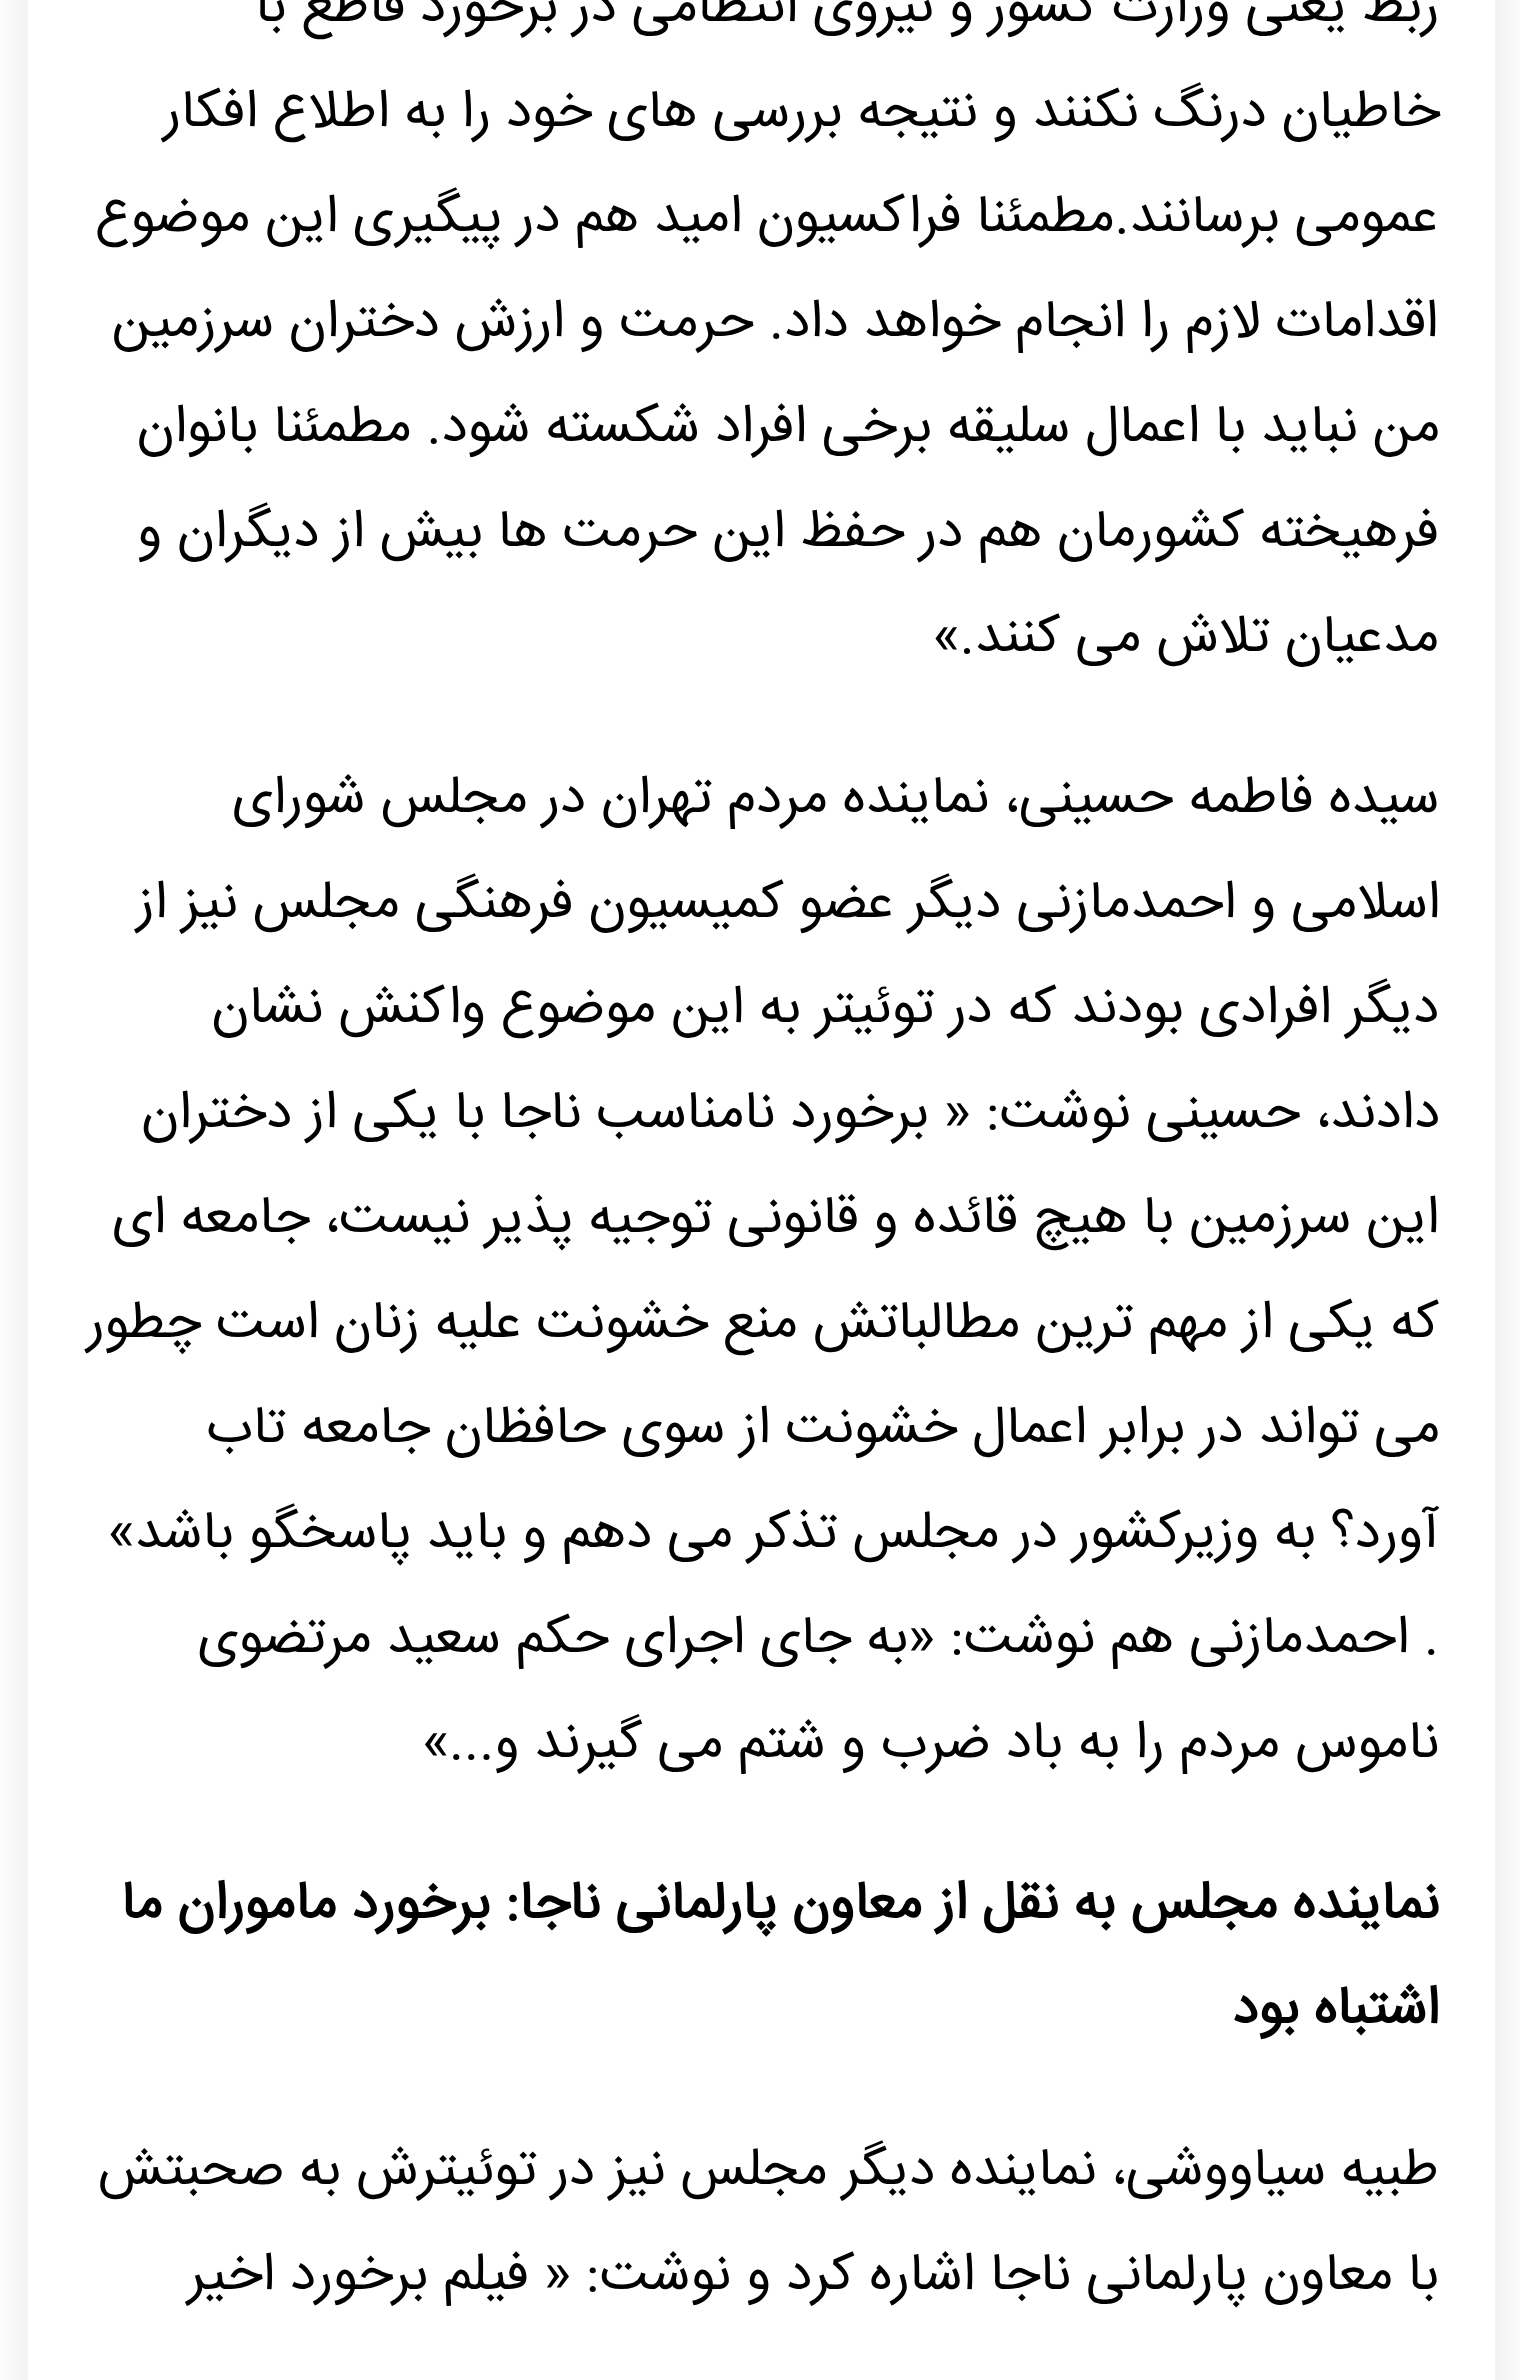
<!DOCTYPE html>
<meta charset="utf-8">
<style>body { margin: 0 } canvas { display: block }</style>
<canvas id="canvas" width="1520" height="2380"></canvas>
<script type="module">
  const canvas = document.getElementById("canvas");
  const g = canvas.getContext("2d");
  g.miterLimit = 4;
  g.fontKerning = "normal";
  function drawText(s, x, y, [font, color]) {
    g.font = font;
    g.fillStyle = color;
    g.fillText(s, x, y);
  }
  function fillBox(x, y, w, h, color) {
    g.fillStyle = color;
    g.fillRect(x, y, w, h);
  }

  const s1 = ["53.2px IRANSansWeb", "#000000"];
  const s2 = ["bold 53.2px IRANSansWeb", "#000000"];

  fillBox(0, 0, 1520, 2380, "#FFFFFF");
  g.save();
  g.beginPath();
  g.moveTo(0, 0);
  g.lineTo(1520, 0);
  g.lineTo(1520, 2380);
  g.lineTo(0, 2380);
  g.closePath();
  g.moveTo(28, -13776);
  g.lineTo(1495, -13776);
  g.lineTo(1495, 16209);
  g.lineTo(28, 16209);
  g.closePath();
  g.clip("evenodd");
  g.fillStyle = "rgba(0, 0, 0, 0.1)";
  g.filter = "blur(24.5px)";
  g.beginPath();
  g.rect(28, -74, 1467, 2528);
  g.fill();
  g.filter = "none";
  g.restore();
  g.direction = "rtl";
  drawText("ربط یعنی وزارت کشور و نیروی انتظامی در برخورد قاطع با", 1439, 21, s1);
  drawText("خاطیان درنگ نکنند و نتیجه بررسی های خود را به اطلاع افکار", 1440, 126, s1);
  g.wordSpacing = "-0.25px";
  drawText("عمومی برسانند.مطمئنا فراکسیون امید هم در پیگیری این موضوع", 1438, 231, s1);
  g.wordSpacing = "0px";
  drawText("اقدامات لازم را انجام خواهد داد. حرمت و ارزش دختران سرزمین", 1438, 336, s1);
  drawText("من نباید با اعمال سلیقه برخی افراد شکسته شود. مطمئنا بانوان", 1440, 441, s1);
  drawText("فرهیخته کشورمان هم در حفظ این حرمت ها بیش از دیگران و", 1439, 546, s1);
  drawText("مدعیان تلاش می کنند.»", 1439, 651, s1);
  drawText("سیده فاطمه حسینی، نماینده مردم تهران در مجلس شورای", 1439, 812, s1);
  drawText("اسلامی و احمدمازنی دیگر عضو کمیسیون فرهنگی مجلس نیز از", 1440, 917, s1);
  drawText("دیگر افرادی بودند که در توئیتر به این موضوع واکنش نشان", 1439, 1022, s1);
  drawText("دادند، حسینی نوشت: « برخورد نامناسب ناجا با یکی از دختران", 1440, 1127, s1);
  drawText("این سرزمین با هیچ قائده و قانونی توجیه پذیر نیست، جامعه ای", 1439, 1232, s1);
  drawText("که یکی از مهم ترین مطالباتش منع خشونت علیه زنان است چطور", 1439, 1337, s1);
  drawText("می تواند در برابر اعمال خشونت از سوی حافظان جامعه تاب", 1440, 1442, s1);
  drawText("آورد؟ به وزیرکشور در مجلس تذکر می دهم و باید پاسخگو باشد»", 1439, 1547, s1);
  drawText(". احمدمازنی هم نوشت: «به جای اجرای حکم سعید مرتضوی", 1439, 1652, s1);
  drawText("ناموس مردم را به باد ضرب و شتم می گیرند و...»", 1439, 1757, s1);
  drawText("نماینده مجلس به نقل از معاون پارلمانی ناجا: برخورد ماموران ما", 1439, 1918, s2);
  drawText("اشتباه بود", 1439, 2023, s2);
  g.wordSpacing = "-0.1px";
  drawText("طبیه سیاووشی، نماینده دیگر مجلس نیز در توئیترش به صحبتش", 1439, 2184, s1);
  g.wordSpacing = "0px";
  drawText("با معاون پارلمانی ناجا اشاره کرد و نوشت: « فیلم برخورد اخیر", 1439, 2289, s1);
</script>
